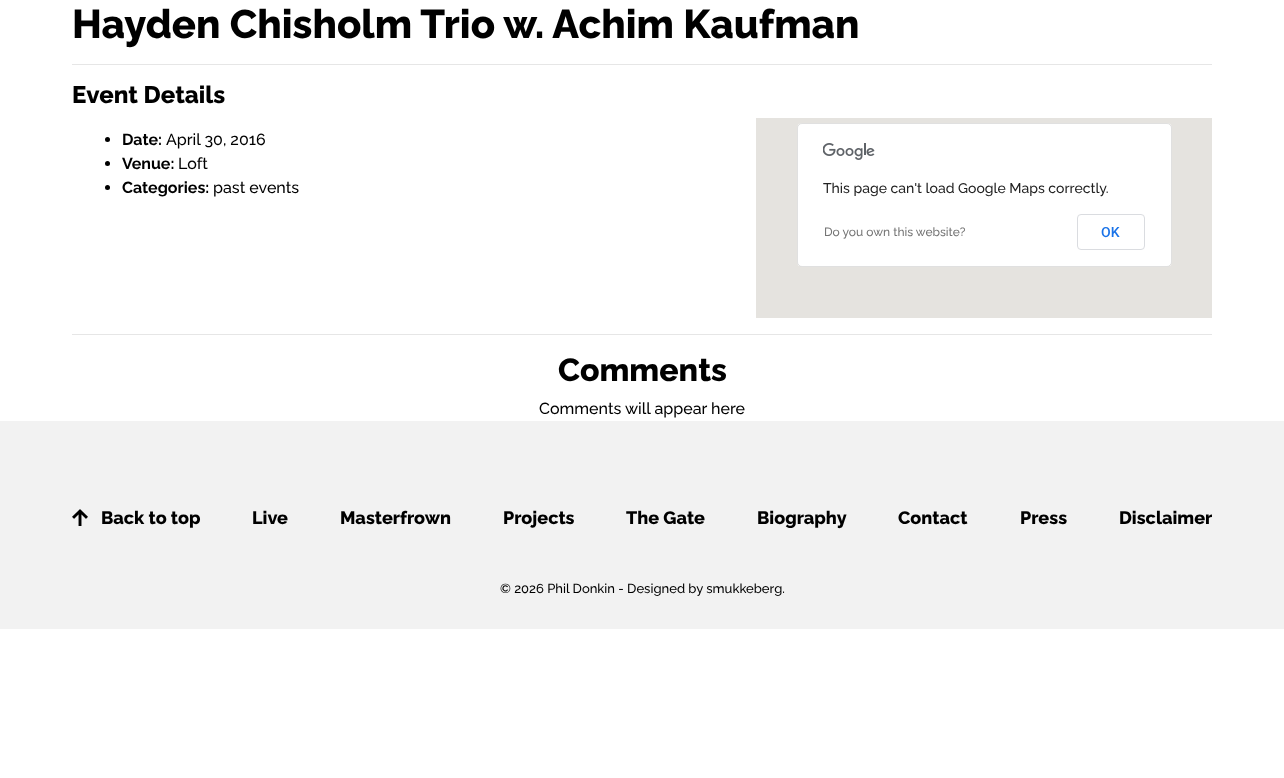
<!DOCTYPE html>
<meta charset="utf-8">
<style>body { margin: 0 } canvas { display: block }</style>
<canvas id="canvas" width="1284" height="778"></canvas>
<script type="module">
  const canvas = document.getElementById("canvas");
  const g = canvas.getContext("2d");
  g.miterLimit = 4;
  g.fontKerning = "normal";
  function drawText(s, x, y, [font, color]) {
    g.font = font;
    g.fillStyle = color;
    g.fillText(s, x, y);
  }
  function fillBox(x, y, w, h, color) {
    g.fillStyle = color;
    g.fillRect(x, y, w, h);
  }
  function fillRounded(x, y, w, h, r, color) {
    g.fillStyle = color;
    g.beginPath();
    g.roundRect(x, y, w, h, r);
    g.fill();
  }
  async function drawPicture(src, x, y, w, h) {
    const img = new Image();
    img.src = src;
    await img.decode();
    g.drawImage(img, x, y, w, h);
  }

  const s1 = ["800 40px Raleway", "#000000"];
  const s2 = ["800 24px Raleway", "#000000"];
  const s3 = ["bold 16px Raleway", "#000000"];
  const s4 = ["500 16px Raleway", "#000000"];
  const s5 = ["500 14px Raleway", "#212121"];
  const s6 = ["500 12px Raleway", "#757575"];
  const s7 = ["500 14px Roboto", "#1A73E8"];
  const s8 = ["800 32px Raleway", "#000000"];
  const s9 = ["800 18px Raleway", "#000000"];
  const s10 = ["500 13px Raleway", "#000000"];

  fillBox(0, 0, 1284, 778, "#FFFFFF");
  drawText("Hayden Chisholm Trio w. Achim Kaufman", 72, 38, s1);
  fillBox(72, 64, 1140, 1, "#E6E6E6");
  drawText("Event Details", 72, 103, s2);
  g.beginPath();
  g.arc(107.5, 139.5, 2.5, 0, Math.PI * 2);
  g.fill();
  drawText("Date:", 122, 145, s3);
  drawText("April 30, 2016", 166, 145, s4);
  g.beginPath();
  g.arc(107.5, 163.5, 2.5, 0, Math.PI * 2);
  g.fill();
  drawText("Venue:", 122, 169, s3);
  drawText("Loft", 178, 169, s4);
  g.beginPath();
  g.arc(107.5, 187.5, 2.5, 0, Math.PI * 2);
  g.fill();
  drawText("Categories:", 122, 193, s3);
  drawText("past events", 213, 193, s4);
  fillBox(756, 118, 456, 200, "#E5E3DF");
  fillRounded(797, 123, 375, 144, 5, "#FFFFFF");
  g.beginPath();
  g.roundRect(797.5, 123.5, 374, 143, 4.5);
  g.strokeStyle = "rgba(0, 0, 0, 0.12)";
  g.stroke();
  await drawPicture("pic1.png", 823, 143, 52, 17);
  drawText("This page can't load Google Maps correctly.", 823, 193, s5);
  drawText("Do you own this website?", 824, 236, s6);
  g.beginPath();
  g.roundRect(1077.5, 214.5, 67, 35, 3.5);
  g.strokeStyle = "#DADCE0";
  g.stroke();
  drawText("OK", 1101, 237, s7);
  fillBox(72, 334, 1140, 1, "#E6E6E6");
  drawText("Comments", 558, 381, s8);
  drawText("Comments will appear here", 539, 414, s4);
  fillBox(0, 421, 1284, 208, "#F2F2F2");
  await drawPicture("pic2.png", 72, 509, 16, 17);
  drawText("Back to top", 101, 524, s9);
  drawText("Live", 252, 524, s9);
  drawText("Masterfrown", 340, 524, s9);
  drawText("Projects", 503, 524, s9);
  drawText("The Gate", 626, 524, s9);
  drawText("Biography", 757, 524, s9);
  drawText("Contact", 898, 524, s9);
  drawText("Press", 1020, 524, s9);
  drawText("Disclaimer", 1119, 524, s9);
  drawText("© 2026 Phil Donkin - Designed by smukkeberg.", 500, 593, s10);
</script>
